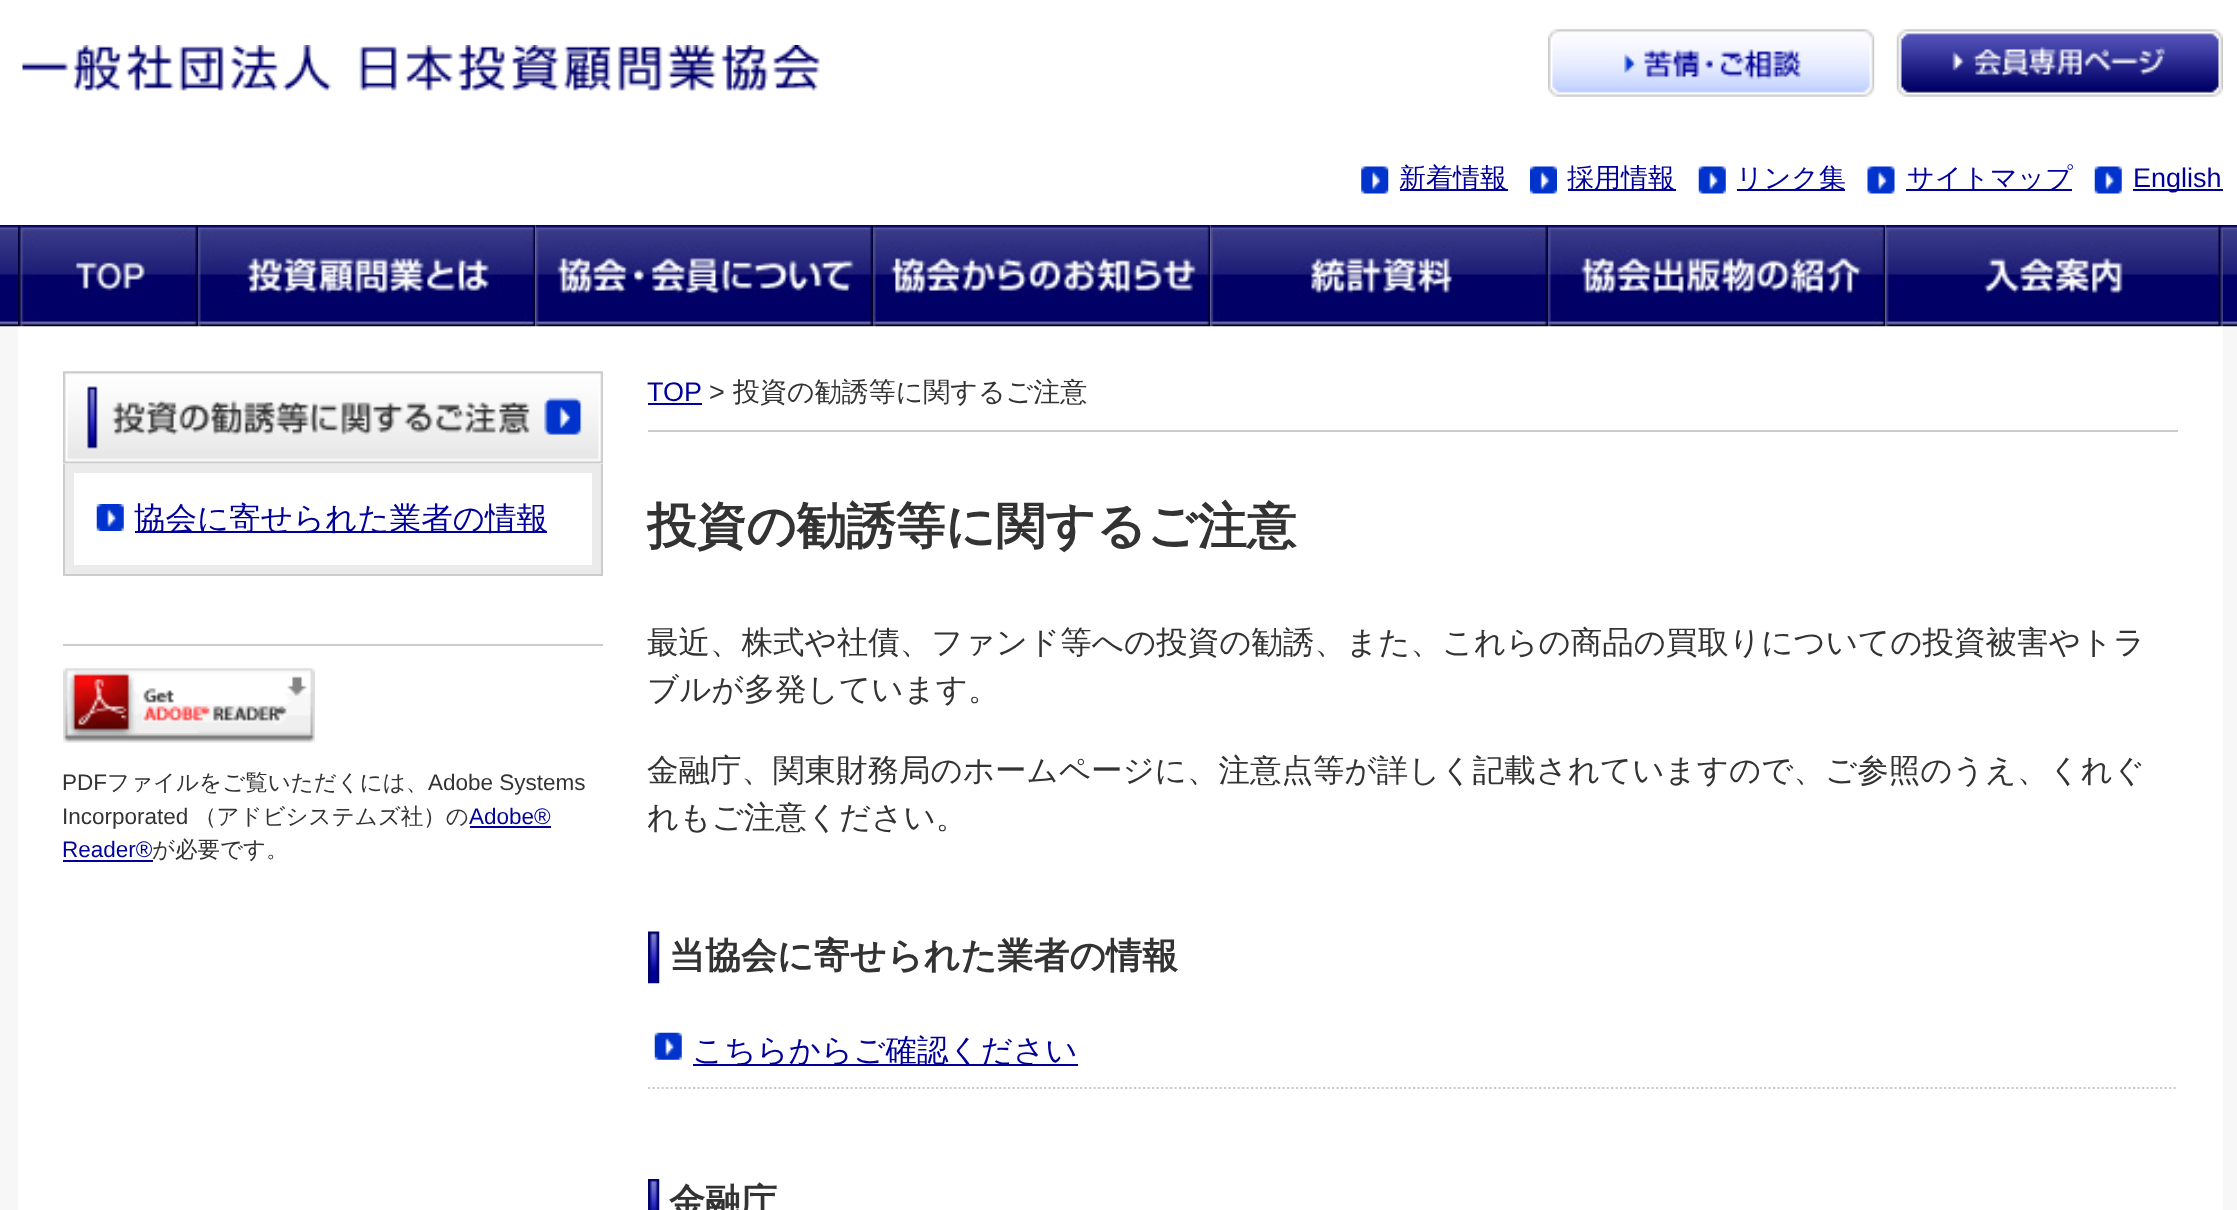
<!DOCTYPE html>
<meta charset="utf-8">
<style>body { margin: 0 } canvas { display: block }</style>
<canvas id="canvas" width="2237" height="1210"></canvas>
<script type="module">
  const canvas = document.getElementById("canvas");
  const g = canvas.getContext("2d");
  g.miterLimit = 4;
  g.fontKerning = "normal";
  function drawText(s, x, y, [font, color]) {
    g.font = font;
    g.fillStyle = color;
    g.fillText(s, x, y);
  }
  function fillBox(x, y, w, h, color) {
    g.fillStyle = color;
    g.fillRect(x, y, w, h);
  }
  async function drawPicture(src, x, y, w, h) {
    const img = new Image();
    img.src = src;
    await img.decode();
    g.drawImage(img, x, y, w, h);
  }

  const s1 = ["500 27px WenQuanYi Zen Hei", "#000099"];
  const s2 = ["27px Liberation Sans", "#000099"];
  const s3 = ["500 31.5px WenQuanYi Zen Hei", "#000099"];
  const s4 = ["22.5px Liberation Sans", "#333333"];
  const s5 = ["500 22.5px WenQuanYi Zen Hei", "#333333"];
  const s6 = ["22.5px Liberation Sans", "#000099"];
  const s7 = ["27px Liberation Sans", "#333333"];
  const s8 = ["500 27px WenQuanYi Zen Hei", "#333333"];
  const s9 = ["bold 49.5px WenQuanYi Zen Hei", "#333333"];
  const s10 = ["500 31.5px WenQuanYi Zen Hei", "#333333"];
  const s11 = ["bold 36px WenQuanYi Zen Hei", "#333333"];

  fillBox(0, 0, 2237, 1210, "#F8F7F7");
  fillBox(0, 0, 2237, 225, "#FFFFFF");
  await drawPicture("pic1.png", 22, 45, 798, 46);
  await drawPicture("pic2.png", 1548, 29, 327, 68);
  await drawPicture("pic3.png", 1896, 29, 327, 68);
  await drawPicture("pic4.png", 1361, 166, 28, 28);
  fillBox(1400, 189, 108, 2, "#000099");
  drawText("新着情報", 1399, 187, s1);
  await drawPicture("pic5.png", 1530, 166, 27, 28);
  fillBox(1568, 189, 108, 2, "#000099");
  drawText("採用情報", 1567, 187, s1);
  await drawPicture("pic6.png", 1698, 166, 28, 28);
  fillBox(1737, 189, 108, 2, "#000099");
  drawText("リンク集", 1736, 187, s1);
  await drawPicture("pic7.png", 1867, 166, 28, 28);
  fillBox(1906, 189, 166, 2, "#000099");
  drawText("サイトマップ", 1907, 187, s1);
  await drawPicture("pic6.png", 2094, 166, 28, 28);
  fillBox(2133, 189, 90, 2, "#000099");
  drawText("English", 2133, 187, s2);
  await drawPicture("pic8.png", 0, 225, 2237, 102);
  fillBox(18, 225, 2205, 985, "#FFFFFF");
  await drawPicture("pic9.png", 18, 225, 180, 102);
  await drawPicture("pic10.png", 198, 225, 338, 102);
  await drawPicture("pic11.png", 535, 225, 338, 102);
  await drawPicture("pic12.png", 873, 225, 338, 102);
  await drawPicture("pic13.png", 1210, 225, 338, 102);
  await drawPicture("pic14.png", 1548, 225, 338, 102);
  await drawPicture("pic15.png", 1885, 225, 338, 102);
  await drawPicture("pic16.png", 63, 371, 540, 93);
  fillBox(65, 464, 536, 110, "#EBEBEB");
  fillBox(601, 464, 2, 112, "#CCCCCC");
  fillBox(63, 574, 540, 2, "#CCCCCC");
  fillBox(63, 464, 2, 112, "#CCCCCC");
  fillBox(74, 473, 518, 92, "#FFFFFF");
  await drawPicture("pic17.png", 96, 504, 28, 27);
  fillBox(135, 531, 412, 2, "#000099");
  drawText("協会に寄せられた業者の情報", 134, 529, s3);
  fillBox(63, 644, 540, 2, "#CCCCCC");
  await drawPicture("pic18.png", 63, 668, 252, 75);
  drawText("PDF", 62, 790, s4);
  drawText("ファイルをご覧いただくには、", 107, 790, s5);
  drawText("Adobe Systems", 428, 790, s4);
  drawText("Incorporated", 62, 824, s4);
  drawText("（アドビシステムズ社）の", 194, 824, s5);
  drawText("Adobe®", 469, 824, s6);
  fillBox(470, 826, 81, 2, "#000099");
  drawText("Reader®", 62, 857, s6);
  fillBox(63, 860, 90, 2, "#000099");
  drawText("が必要です。", 152, 857, s5);
  fillBox(648, 430, 1530, 2, "#CCCCCC");
  drawText("TOP", 647, 401, s2);
  fillBox(648, 403, 54, 2, "#000099");
  drawText(">", 709, 401, s7);
  drawText("投資の勧誘等に関するご注意", 733, 401, s8);
  drawText("投資の勧誘等に関するご注意", 647, 543, s9);
  drawText("最近、株式や社債、ファンド等への投資の勧誘、また、これらの商品の買取りについての投資被害やトラ", 647, 653, s10);
  drawText("ブルが多発しています。", 647, 700, s10);
  drawText("金融庁、関東財務局のホームページに、注意点等が詳しく記載されていますので、ご参照のうえ、くれぐ", 647, 781, s10);
  drawText("れもご注意ください。", 647, 828, s10);
  await drawPicture("pic19.png", 648, 931, 12, 53);
  drawText("当協会に寄せられた業者の情報", 669, 968, s11);
  g.beginPath();
  g.moveTo(648, 1088);
  g.lineTo(2178, 1088);
  g.strokeStyle = "#CCCCCC";
  g.lineWidth = 2.2;
  g.setLineDash([2.25, 2.25]);
  g.stroke();
  await drawPicture("pic20.png", 654, 1032, 28, 28);
  fillBox(693, 1064, 385, 2, "#000099");
  drawText("こちらからご確認ください", 692, 1061, s3);
  await drawPicture("pic21.png", 648, 1179, 12, 31);
  drawText("金融庁", 669, 1214, s11);
</script>
